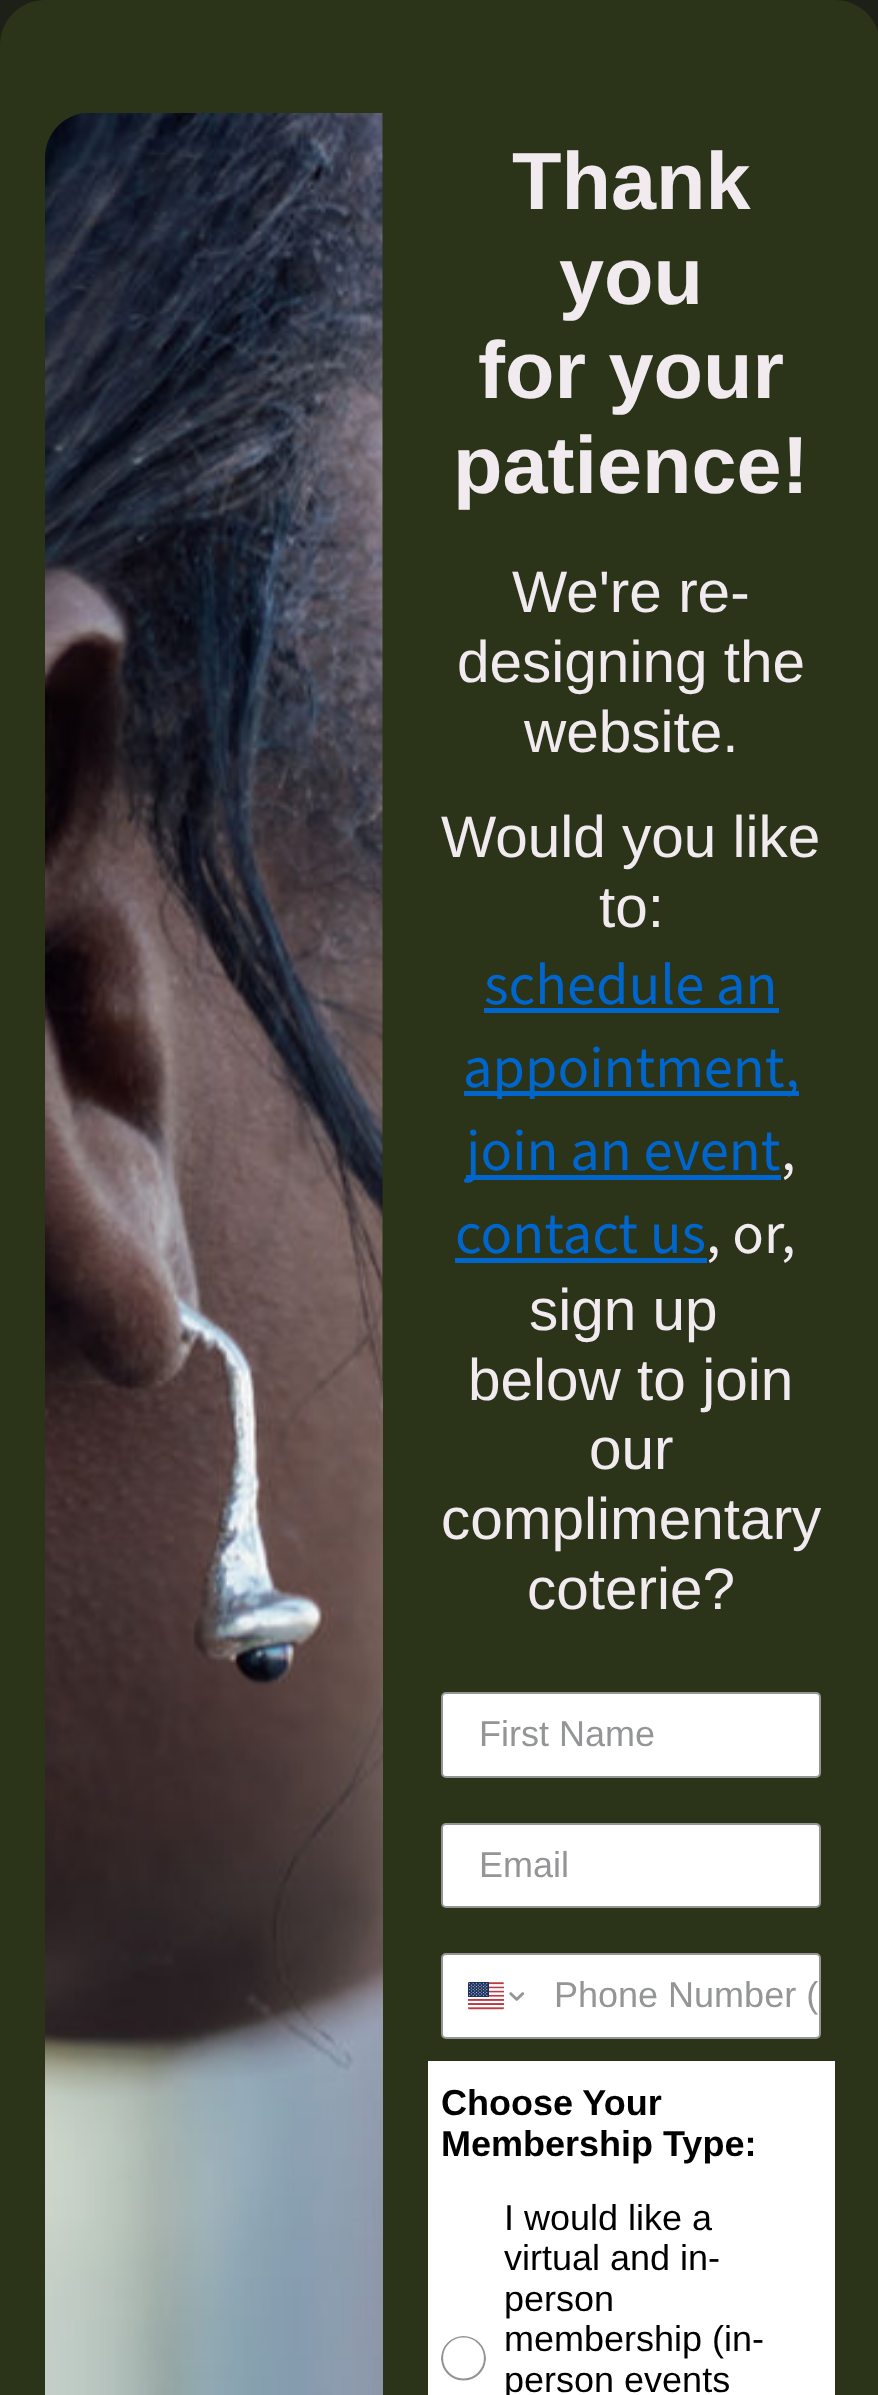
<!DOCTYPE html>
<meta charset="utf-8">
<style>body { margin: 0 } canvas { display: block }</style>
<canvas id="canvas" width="878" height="2395"></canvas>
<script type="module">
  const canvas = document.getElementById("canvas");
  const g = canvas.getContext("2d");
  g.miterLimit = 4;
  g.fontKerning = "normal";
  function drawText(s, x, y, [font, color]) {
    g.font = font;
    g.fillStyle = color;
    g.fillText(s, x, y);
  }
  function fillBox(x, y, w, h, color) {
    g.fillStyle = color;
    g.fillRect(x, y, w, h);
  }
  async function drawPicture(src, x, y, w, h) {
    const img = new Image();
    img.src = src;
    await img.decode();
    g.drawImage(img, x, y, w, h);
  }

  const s1 = ["bold 81px Liberation Sans", "#F1EBEF"];
  const s2 = ["58.5px Liberation Sans", "#F1EBEF"];
  const s3 = ["58.5px Source Sans Pro", "#0066CC"];
  const s4 = ["58.5px Source Sans Pro", "#F1EBEF"];
  const s5 = ["36px Liberation Sans", "#949596"];
  const s6 = ["bold 36px Liberation Sans", "#000000"];
  const s7 = ["36px Liberation Sans", "#000000"];

  fillBox(0, 0, 878, 2395, "#1D2016");
  g.fillStyle = "#2B3319";
  g.beginPath();
  g.moveTo(45, 0);
  g.lineTo(835, 0);
  g.bezierCurveTo(860, 0, 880, 20, 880, 45);
  g.lineTo(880, 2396);
  g.lineTo(0, 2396);
  g.lineTo(0, 45);
  g.bezierCurveTo(0, 20, 20, 0, 45, 0);
  g.closePath();
  g.fill();
  await drawPicture("pic1.png", 45, 113, 338, 2282);
  drawText("Thank", 512, 209, s1);
  drawText("you", 559, 304, s1);
  drawText("for your", 478, 398, s1);
  drawText("patience!", 453, 493, s1);
  drawText("We're re-", 512, 612, s2);
  drawText("designing the", 457, 682, s2);
  drawText("website.", 524, 752, s2);
  drawText("Would you like", 441, 857, s2);
  drawText("to:", 599, 927, s2);
  drawText("schedule an", 484, 1004, s3);
  fillBox(484, 1008, 295, 5, "#0066CC");
  fillBox(464, 1091, 335, 5, "#0066CC");
  drawText("appointment,", 463, 1087, s3);
  fillBox(466, 1175, 315, 5, "#0066CC");
  drawText("join an event", 466, 1170, s3);
  drawText(",", 781, 1170, s4);
  drawText("contact us", 455, 1253, s3);
  drawText(", or,", 706, 1253, s4);
  fillBox(455, 1258, 252, 5, "#0066CC");
  drawText("sign up", 529, 1330, s2);
  drawText("below to join", 468, 1400, s2);
  drawText("our", 589, 1469, s2);
  drawText("complimentary", 441, 1539, s2);
  drawText("coterie?", 527, 1609, s2);
  g.fillStyle = "#FFFFFF";
  g.beginPath();
  g.roundRect(442, 1693, 378, 84, 4);
  g.fill();
  g.strokeStyle = "#949596";
  g.lineWidth = 2;
  g.stroke();
  drawText("First Name", 479, 1746, s5);
  g.fillStyle = "#FFFFFF";
  g.beginPath();
  g.roundRect(442, 1824, 378, 83, 4);
  g.fill();
  g.stroke();
  drawText("Email", 479, 1877, s5);
  g.fillStyle = "#FFFFFF";
  g.beginPath();
  g.roundRect(442, 1954, 378, 84, 4);
  g.fill();
  g.stroke();
  await drawPicture("pic2.png", 468, 1982, 36, 28);
  await drawPicture("pic3.png", 509, 1992, 15, 9);
  drawText("Phone Number (", 554, 2007, s5);
  fillBox(428, 2061, 407, 334, "#FFFFFF");
  drawText("Choose Your", 441, 2115, s6);
  drawText("Membership Type:", 441, 2156, s6);
  g.save();
  g.beginPath();
  g.roundRect(441, 2336, 45, 45, 22.5);
  g.clip();
  g.beginPath();
  g.arc(463.5, 2358, 21.5, 0, Math.PI * 2);
  g.lineWidth = 2.2;
  g.stroke();
  g.restore();
  drawText("I would like a", 504, 2230, s7);
  drawText("virtual and in-", 504, 2270, s7);
  drawText("person", 504, 2311, s7);
  drawText("membership (in-", 504, 2351, s7);
  drawText("person events", 504, 2392, s7);
</script>
